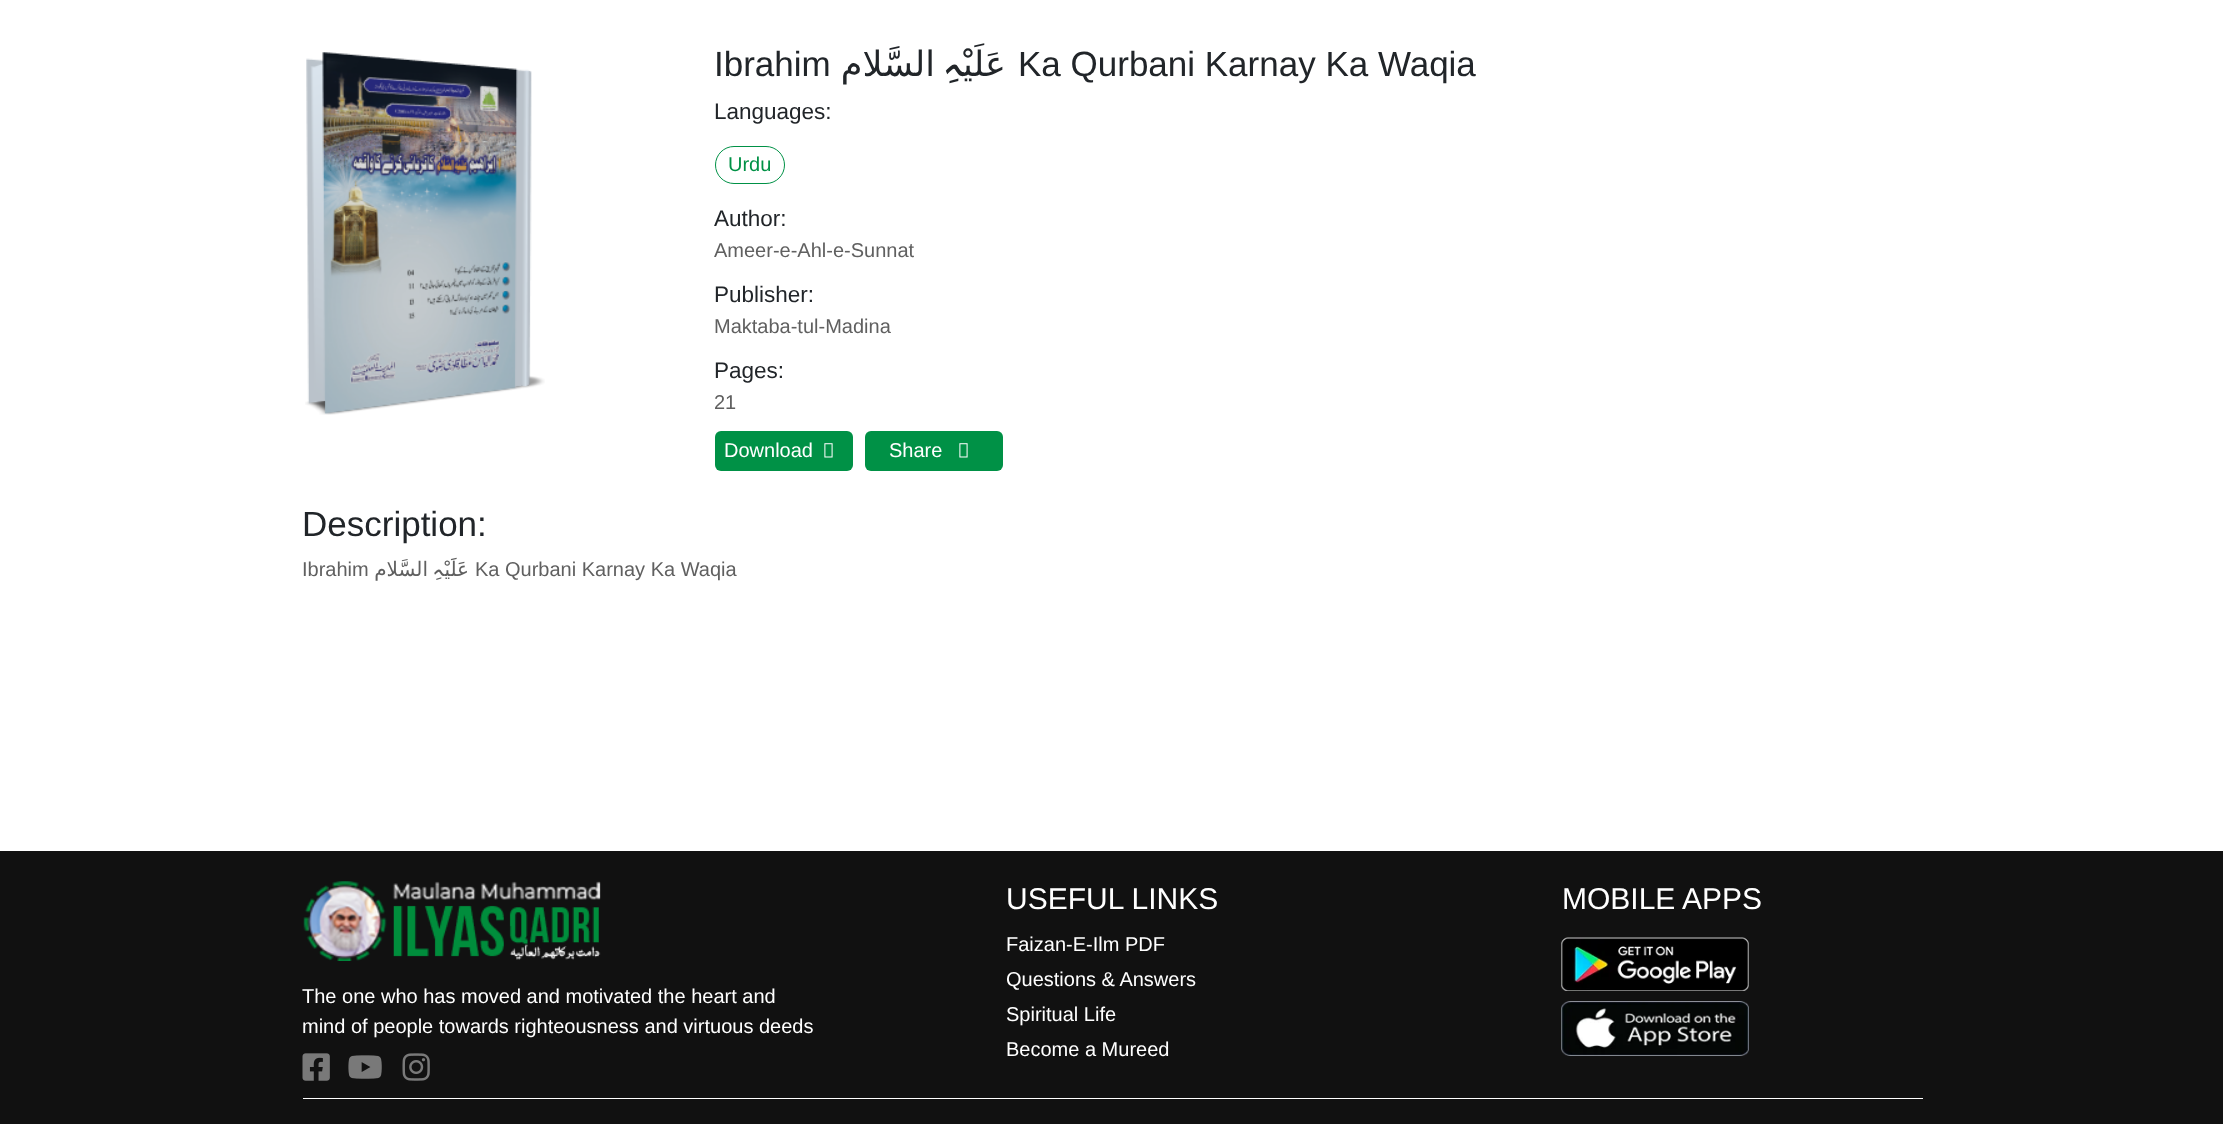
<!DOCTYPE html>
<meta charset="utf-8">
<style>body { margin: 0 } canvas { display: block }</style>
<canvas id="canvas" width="2223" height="1124"></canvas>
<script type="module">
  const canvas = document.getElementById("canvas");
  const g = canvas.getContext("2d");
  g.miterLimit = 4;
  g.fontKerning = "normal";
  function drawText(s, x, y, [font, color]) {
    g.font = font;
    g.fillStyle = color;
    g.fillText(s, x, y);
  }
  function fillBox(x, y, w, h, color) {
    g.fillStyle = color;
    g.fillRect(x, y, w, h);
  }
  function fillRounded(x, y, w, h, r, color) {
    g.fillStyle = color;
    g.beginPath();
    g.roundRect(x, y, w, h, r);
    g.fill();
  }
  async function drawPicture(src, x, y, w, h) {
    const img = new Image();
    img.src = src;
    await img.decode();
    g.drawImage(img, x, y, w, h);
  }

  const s1 = ["35px Liberation Sans", "#212529"];
  const s2 = ["35px DejaVu Sans", "#212529"];
  const s3 = ["500 35px Cascadia Code", "#212529"];
  const s4 = ["22.5px Liberation Sans", "#212529"];
  const s5 = ["20px Liberation Sans", "#009146"];
  const s6 = ["20px Liberation Sans", "#606060"];
  const s7 = ["20px Liberation Sans", "#FFFFFF"];
  const s8 = ["20px DejaVu Sans", "#606060"];
  const s9 = ["20px Cascadia Code", "#606060"];
  const s10 = ["30px Liberation Sans", "#FFFFFF"];

  fillBox(0, 0, 2223, 1124, "#FFFFFF");
  await drawPicture("pic1.png", 305, 52, 240, 363);
  drawText("Ibrahim", 714, 76, s1);
  g.direction = "rtl";
  drawText("السَّلام", 935, 76, s2);
  drawText("‍ہِ", 963, 76, s3);
  drawText("عَلَیْ‍", 1006, 76, s2);
  g.direction = "ltr";
  drawText("Ka Qurbani Karnay Ka Waqia", 1018, 76, s1);
  drawText("Languages:", 714, 119, s4);
  g.beginPath();
  g.roundRect(715.5, 146.5, 69, 37, 18.5);
  g.strokeStyle = "#009146";
  g.stroke();
  drawText("Urdu", 728, 171, s5);
  drawText("Author:", 714, 226, s4);
  drawText("Ameer-e-Ahl-e-Sunnat", 714, 257, s6);
  drawText("Publisher:", 714, 302, s4);
  drawText("Maktaba-tul-Madina", 714, 333, s6);
  drawText("Pages:", 714, 378, s4);
  drawText("21", 714, 409, s6);
  fillRounded(715, 431, 138, 40, 6, "#009146");
  drawText("Download", 724, 457, s7);
  await drawPicture("pic2.png", 824, 443, 9, 15);
  fillRounded(865, 431, 138, 40, 6, "#009146");
  drawText("Share", 889, 457, s7);
  await drawPicture("pic2.png", 959, 443, 9, 15);
  drawText("Description:", 302, 536, s1);
  drawText("Ibrahim", 302, 576, s6);
  g.direction = "rtl";
  drawText("السَّلام", 428, 576, s8);
  drawText("‍ہِ", 444, 576, s9);
  drawText("عَلَیْ‍", 469, 576, s8);
  g.direction = "ltr";
  drawText("Ka Qurbani Karnay Ka Waqia", 475, 576, s6);
  fillBox(0, 851, 2223, 273, "#111111");
  drawText("USEFUL LINKS", 1006, 909, s10);
  drawText("Faizan-E-Ilm PDF", 1006, 951, s7);
  drawText("Questions & Answers", 1006, 986, s7);
  drawText("Spiritual Life", 1006, 1021, s7);
  drawText("Become a Mureed", 1006, 1056, s7);
  drawText("MOBILE APPS", 1562, 909, s10);
  await drawPicture("pic3.png", 1561, 937, 188, 54);
  await drawPicture("pic4.png", 1561, 1001, 188, 55);
  await drawPicture("pic5.png", 303, 881, 298, 80);
  drawText("The one who has moved and motivated the heart and", 302, 1003, s7);
  drawText("mind of people towards righteousness and virtuous deeds", 302, 1033, s7);
  await drawPicture("pic6.png", 302, 1053, 28, 28);
  await drawPicture("pic7.png", 348, 1055, 34, 24);
  await drawPicture("pic8.png", 402, 1053, 28, 28);
  fillBox(303, 1098, 1620, 1, "#FFFFFF");
</script>
